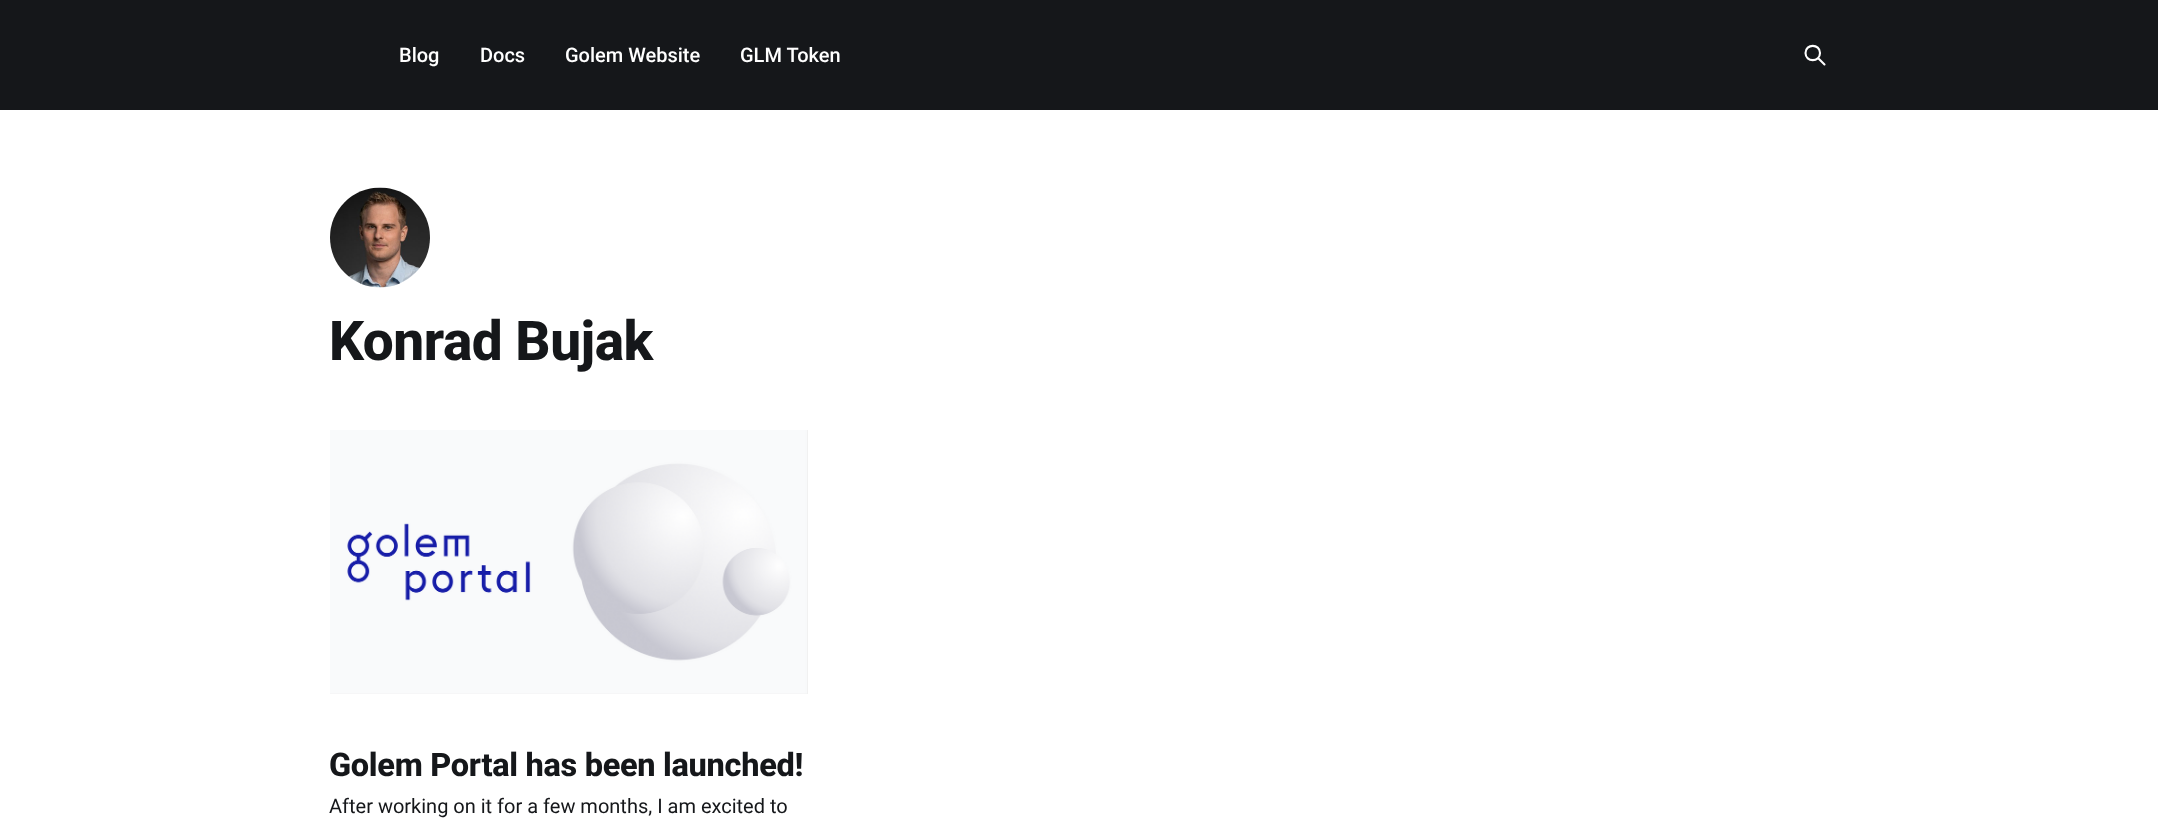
<!DOCTYPE html>
<meta charset="utf-8">
<style>body { margin: 0 } canvas { display: block }</style>
<canvas id="canvas" width="2158" height="824"></canvas>
<script type="module">
  const canvas = document.getElementById("canvas");
  const g = canvas.getContext("2d");
  g.miterLimit = 4;
  g.fontKerning = "normal";
  function drawText(s, x, y, [font, color]) {
    g.font = font;
    g.fillStyle = color;
    g.fillText(s, x, y);
  }
  function fillBox(x, y, w, h, color) {
    g.fillStyle = color;
    g.fillRect(x, y, w, h);
  }
  async function drawPicture(src, x, y, w, h) {
    const img = new Image();
    img.src = src;
    await img.decode();
    g.drawImage(img, x, y, w, h);
  }

  const s1 = ["500 20px Roboto", "#FFFFFF"];
  const s2 = ["800 55px Roboto", "#15171A"];
  const s3 = ["800 32.5px Roboto", "#15171A"];
  const s4 = ["20px Roboto", "#15171A"];

  fillBox(0, 0, 2158, 824, "#FFFFFF");
  fillBox(0, 0, 2158, 110, "#15171A");
  drawText("Blog", 399, 62, s1);
  drawText("Docs", 480, 62, s1);
  drawText("Golem Website", 565, 62, s1);
  drawText("GLM Token", 740, 62, s1);
  g.beginPath();
  g.moveTo(1824.5, 64.5);
  g.lineTo(1818, 58);
  g.moveTo(1820, 53);
  g.bezierCurveTo(1820, 62.5, 1805.5, 62.5, 1805.5, 53);
  g.bezierCurveTo(1805.5, 43.5, 1820, 43.5, 1820, 53);
  g.closePath();
  g.strokeStyle = "#FFFFFF";
  g.lineWidth = 2.1;
  g.lineCap = "round";
  g.lineJoin = "round";
  g.stroke();
  await drawPicture("pic1.png", 330, 187, 100, 101);
  g.letterSpacing = "-0.5px";
  drawText("Konrad Bujak", 329, 360, s2);
  fillBox(330, 430, 478, 264, "#F1F1F1");
  await drawPicture("pic2.png", 330, 430, 477, 264);
  g.letterSpacing = "-0.3px";
  drawText("Golem Portal has been launched!", 329, 776, s3);
  g.letterSpacing = "0px";
  drawText("After working on it for a few months, I am excited to", 329, 813, s4);
</script>
